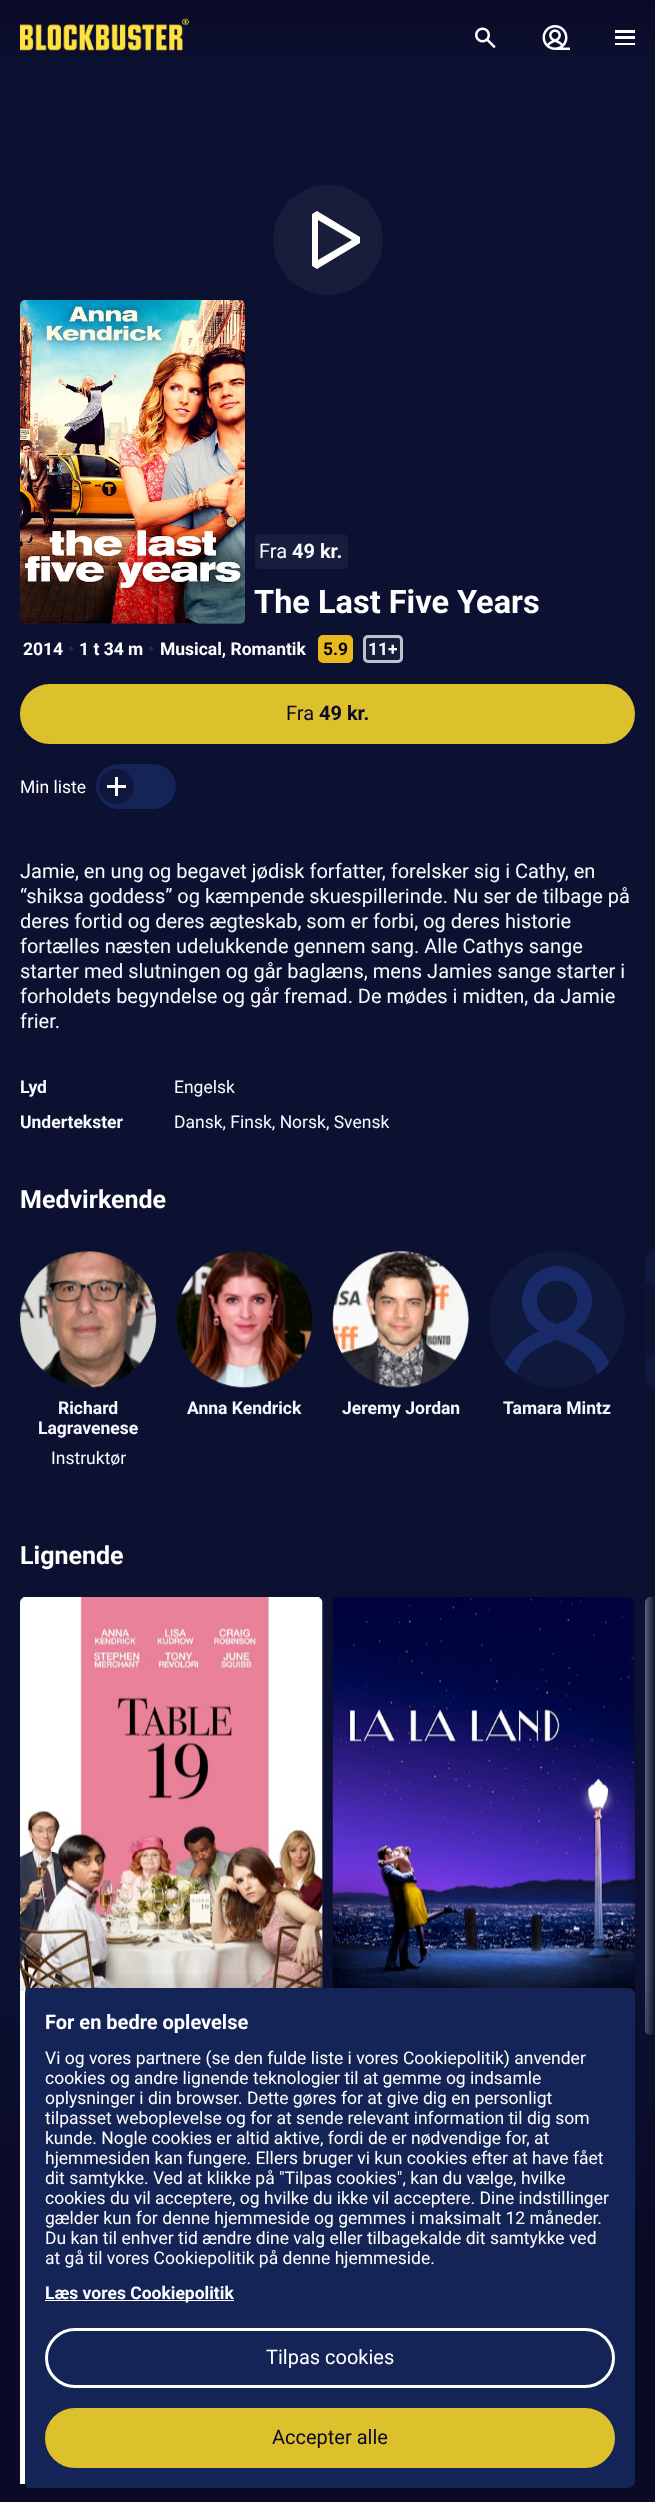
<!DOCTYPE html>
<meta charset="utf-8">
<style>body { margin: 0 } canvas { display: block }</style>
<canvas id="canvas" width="655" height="2502"></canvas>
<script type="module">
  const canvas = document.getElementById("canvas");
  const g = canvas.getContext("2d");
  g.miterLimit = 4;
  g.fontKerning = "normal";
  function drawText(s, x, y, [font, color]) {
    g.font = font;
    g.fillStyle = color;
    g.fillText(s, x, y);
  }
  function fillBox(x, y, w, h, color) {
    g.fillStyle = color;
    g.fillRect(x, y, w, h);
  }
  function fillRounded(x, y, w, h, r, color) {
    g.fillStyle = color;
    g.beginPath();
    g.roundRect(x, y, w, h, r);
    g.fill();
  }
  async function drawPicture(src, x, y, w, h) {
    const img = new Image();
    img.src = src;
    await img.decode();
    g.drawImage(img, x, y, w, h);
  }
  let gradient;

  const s1 = ["20px Roboto", "#F8FAFF"];
  const s2 = ["bold 20px Roboto", "#F8FAFF"];
  const s3 = ["bold 32.5px Roboto", "#FFFFFF"];
  const s4 = ["bold 17.5px Roboto", "#FFFFFF"];
  const s5 = ["bold 17.5px Roboto", "#182A68"];
  const s6 = ["bold 17.5px Roboto", "#000000"];
  const s7 = ["bold 17.5px Roboto", "#F8FAFF"];
  const s8 = ["20px Roboto", "#0A0A27"];
  const s9 = ["bold 20px Roboto", "#0A0A27"];
  const s10 = ["17.5px Roboto", "#FFFFFF"];
  const s11 = ["17.5px Roboto", "#F8FAFF"];
  const s12 = ["bold 25px Roboto", "#FFFFFF"];
  const s13 = ["bold 20px Roboto", "#FFFFFF"];
  const s14 = ["20px Roboto", "#FFFFFF"];

  fillBox(0, 0, 655, 2502, "#0C1131");
  gradient = g.createLinearGradient(328, 80, 328, 0);
  gradient.addColorStop(0, "#0C1131");
  gradient.addColorStop(1, "#0A0A27");
  g.fillStyle = gradient;
  g.fillRect(0, 0, 655, 60);
  await drawPicture("pic1.png", 20, 18, 169, 33);
  await drawPicture("pic2.png", 475, 27, 21, 22);
  await drawPicture("pic3.png", 542, 25, 28, 25);
  fillBox(615, 43, 20, 2, "#FFFFFF");
  fillBox(615, 30, 20, 3, "#FFFFFF");
  fillBox(615, 36, 20, 3, "#FFFFFF");
  g.fillStyle = "#181D3B";
  g.beginPath();
  g.arc(328, 240, 55, 0, Math.PI * 2);
  g.fill();
  g.fillStyle = "#FFFFFF";
  g.beginPath();
  g.moveTo(317, 269);
  g.lineTo(312, 266);
  g.lineTo(312, 214);
  g.lineTo(317, 211);
  g.lineTo(360, 237);
  g.lineTo(360, 243);
  g.closePath();
  g.moveTo(318, 220);
  g.lineTo(318, 260);
  g.lineTo(352, 240);
  g.closePath();
  g.fill();
  fillRounded(20, 300, 225, 324, 5, "#14214D");
  await drawPicture("pic4.png", 20, 300, 225, 324);
  fillRounded(255, 534, 93, 35, 5, "#181D3B");
  drawText("Fra", 259, 558, s1);
  drawText("49 kr.", 292, 558, s2);
  drawText("The Last Five Years", 254, 613, s3);
  drawText("2014", 23, 655, s4);
  drawText("•", 68, 655, s5);
  drawText("1 t 34 m", 79, 655, s4);
  drawText("•", 148, 655, s5);
  drawText("Musical, Romantik", 160, 655, s4);
  g.fillStyle = "#E6B91E";
  g.beginPath();
  g.roundRect(319.5, 636.5, 32, 25, 3.5);
  g.fill();
  g.strokeStyle = "#E6B91E";
  g.lineWidth = 3;
  g.stroke();
  drawText("5.9", 323, 655, s6);
  fillRounded(363, 635, 40, 28, 5, "#181D3B");
  g.beginPath();
  g.roundRect(364.5, 636.5, 37, 25, 3.5);
  g.strokeStyle = "rgba(248, 250, 255, 0.75)";
  g.stroke();
  drawText("11+", 368, 655, s7);
  g.fillStyle = "#DDC12C";
  g.beginPath();
  g.roundRect(21.5, 685.5, 612, 57, 28.5);
  g.fill();
  g.strokeStyle = "#DDC12C";
  g.stroke();
  drawText("Fra", 286, 720, s8);
  drawText("49 kr.", 319, 720, s9);
  drawText("Min liste", 20, 793, s10);
  fillRounded(96, 764, 80, 45, 22.5, "#152457");
  g.fillStyle = "rgba(10, 10, 39, 0.5)";
  g.beginPath();
  g.arc(116.5, 786.5, 17.5, 0, Math.PI * 2);
  g.fill();
  fillBox(107, 785, 19, 3, "#F8FAFF");
  fillBox(115, 777, 3, 19, "#F8FAFF");
  drawText("Jamie, en ung og begavet jødisk forfatter, forelsker sig i Cathy, en", 20, 878, s1);
  drawText("“shiksa goddess” og kæmpende skuespillerinde. Nu ser de tilbage på", 20, 903, s1);
  drawText("deres fortid og deres ægteskab, som er forbi, og deres historie", 20, 928, s1);
  drawText("fortælles næsten udelukkende gennem sang. Alle Cathys sange", 20, 953, s1);
  drawText("starter med slutningen og går baglæns, mens Jamies sange starter i", 20, 978, s1);
  drawText("forholdets begyndelse og går fremad. De mødes i midten, da Jamie", 20, 1003, s1);
  drawText("frier.", 20, 1028, s1);
  drawText("Lyd", 20, 1093, s7);
  drawText("Engelsk", 174, 1093, s11);
  drawText("Undertekster", 20, 1128, s7);
  drawText("Dansk, Finsk, Norsk, Svensk", 174, 1128, s11);
  drawText("Medvirkende", 20, 1208, s12);
  g.fillStyle = "#0E193C";
  g.beginPath();
  g.roundRect(645, 1251, 10, 137, [68, 0, 0, 68]);
  g.fill();
  gradient = g.createLinearGradient(625, 1354, 655, 1354);
  gradient.addColorStop(0, "rgba(12, 17, 49, 0)");
  gradient.addColorStop(1, "#0C1131");
  g.fillStyle = gradient;
  g.fillRect(645, 1284, 10, 71);
  fillRounded(20, 1251, 136, 137, 68, "#0E193C");
  await drawPicture("pic5.png", 20, 1251, 137, 137);
  drawText("Richard", 58, 1414, s7);
  drawText("Lagravenese", 38, 1434, s7);
  drawText("Instruktør", 51, 1464, s11);
  g.fillStyle = "#0E193C";
  g.beginPath();
  g.arc(244.5, 1319.5, 68.5, 0, Math.PI * 2);
  g.fill();
  await drawPicture("pic6.png", 176, 1251, 137, 137);
  drawText("Anna Kendrick", 187, 1414, s7);
  fillRounded(333, 1251, 136, 137, 68, "#0E193C");
  await drawPicture("pic7.png", 332, 1251, 137, 137);
  drawText("Jeremy Jordan", 342, 1414, s7);
  fillRounded(489, 1251, 136, 137, 68, "#0E193C");
  await drawPicture("pic8.png", 505, 1266, 105, 108);
  drawText("Tamara Mintz", 503, 1414, s7);
  drawText("Lignende", 20, 1564, s12);
  fillRounded(20, 1598, 303, 437, 5, "#14214D");
  await drawPicture("pic9.png", 20, 1597, 303, 398);
  await drawPicture("pic10.png", 332, 1597, 303, 398);
  g.beginPath();
  g.roundRect(645, 1598, 10, 437, [5, 0, 0, 5]);
  g.fill();
  await drawPicture("pic11.png", 645, 1597, 10, 438);
  gradient = g.createLinearGradient(625, 1816, 655, 1816);
  gradient.addColorStop(0, "rgba(12, 17, 49, 0)");
  gradient.addColorStop(1, "#0C1131");
  g.fillStyle = gradient;
  g.fillRect(626, 1597, 29, 438);
  fillBox(635, 2150, 20, 50, "#0E193C");
  gradient = g.createLinearGradient(625, 2245, 655, 2245);
  gradient.addColorStop(0, "rgba(12, 17, 49, 0)");
  gradient.addColorStop(1, "#0C1131");
  g.fillStyle = gradient;
  g.fillRect(635, 2150, 20, 50);
  gradient = g.createLinearGradient(328, 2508, 328, 1968);
  gradient.addColorStop(0, "#0A0A27");
  gradient.addColorStop(0.5, "#0A0A27");
  gradient.addColorStop(1, "rgba(10, 10, 39, 0)");
  g.fillStyle = gradient;
  g.fillRect(0, 1974, 655, 528);
  g.fillStyle = "#152457";
  g.beginPath();
  g.moveTo(28, 1988);
  g.lineTo(628, 1988);
  g.bezierCurveTo(632, 1988, 635, 1991, 635, 1995);
  g.lineTo(635, 2480);
  g.bezierCurveTo(635, 2484, 632, 2488, 628, 2488);
  g.lineTo(28, 2488);
  g.bezierCurveTo(26, 2488, 25, 2484, 25, 2480);
  g.lineTo(25, 1995);
  g.bezierCurveTo(25, 1991, 26, 1988, 28, 1988);
  g.closePath();
  g.fill();
  fillBox(20, 1991, 5, 493, "#FFFFFF");
  drawText("For en bedre oplevelse", 45, 2029, s13);
  drawText("Vi og vores partnere (se den fulde liste i vores Cookiepolitik) anvender", 45, 2064, s10);
  drawText("cookies og andre lignende teknologier til at gemme og indsamle", 45, 2084, s10);
  drawText("oplysninger i din browser. Dette gøres for at give dig en personligt", 45, 2104, s10);
  drawText("tilpasset weboplevelse og for at sende relevant information til dig som", 45, 2124, s10);
  drawText("kunde. Nogle cookies er altid aktive, fordi de er nødvendige for, at", 45, 2144, s10);
  drawText("hjemmesiden kan fungere. Ellers bruger vi kun cookies efter at have fået", 45, 2164, s10);
  drawText("dit samtykke. Ved at klikke på \"Tilpas cookies\", kan du vælge, hvilke", 45, 2184, s10);
  drawText("cookies du vil acceptere, og hvilke du ikke vil acceptere. Dine indstillinger", 45, 2204, s10);
  drawText("gælder kun for denne hjemmeside og gemmes i maksimalt 12 måneder.", 45, 2224, s10);
  drawText("Du kan til enhver tid ændre dine valg eller tilbagekalde dit samtykke ved", 45, 2244, s10);
  drawText("at gå til vores Cookiepolitik på denne hjemmeside.", 45, 2264, s10);
  fillBox(45, 2300, 189, 1, "#FFFFFF");
  drawText("Læs vores Cookiepolitik", 45, 2299, s4);
  g.beginPath();
  g.roundRect(46.5, 2329.5, 567, 57, 28.5);
  g.strokeStyle = "#FFFFFF";
  g.stroke();
  drawText("Tilpas cookies", 266, 2364, s14);
  g.fillStyle = "#DDC12C";
  g.beginPath();
  g.roundRect(46.5, 2409.5, 567, 57, 28.5);
  g.fill();
  g.strokeStyle = "#DDC12C";
  g.stroke();
  drawText("Accepter alle", 272, 2444, s8);
</script>
